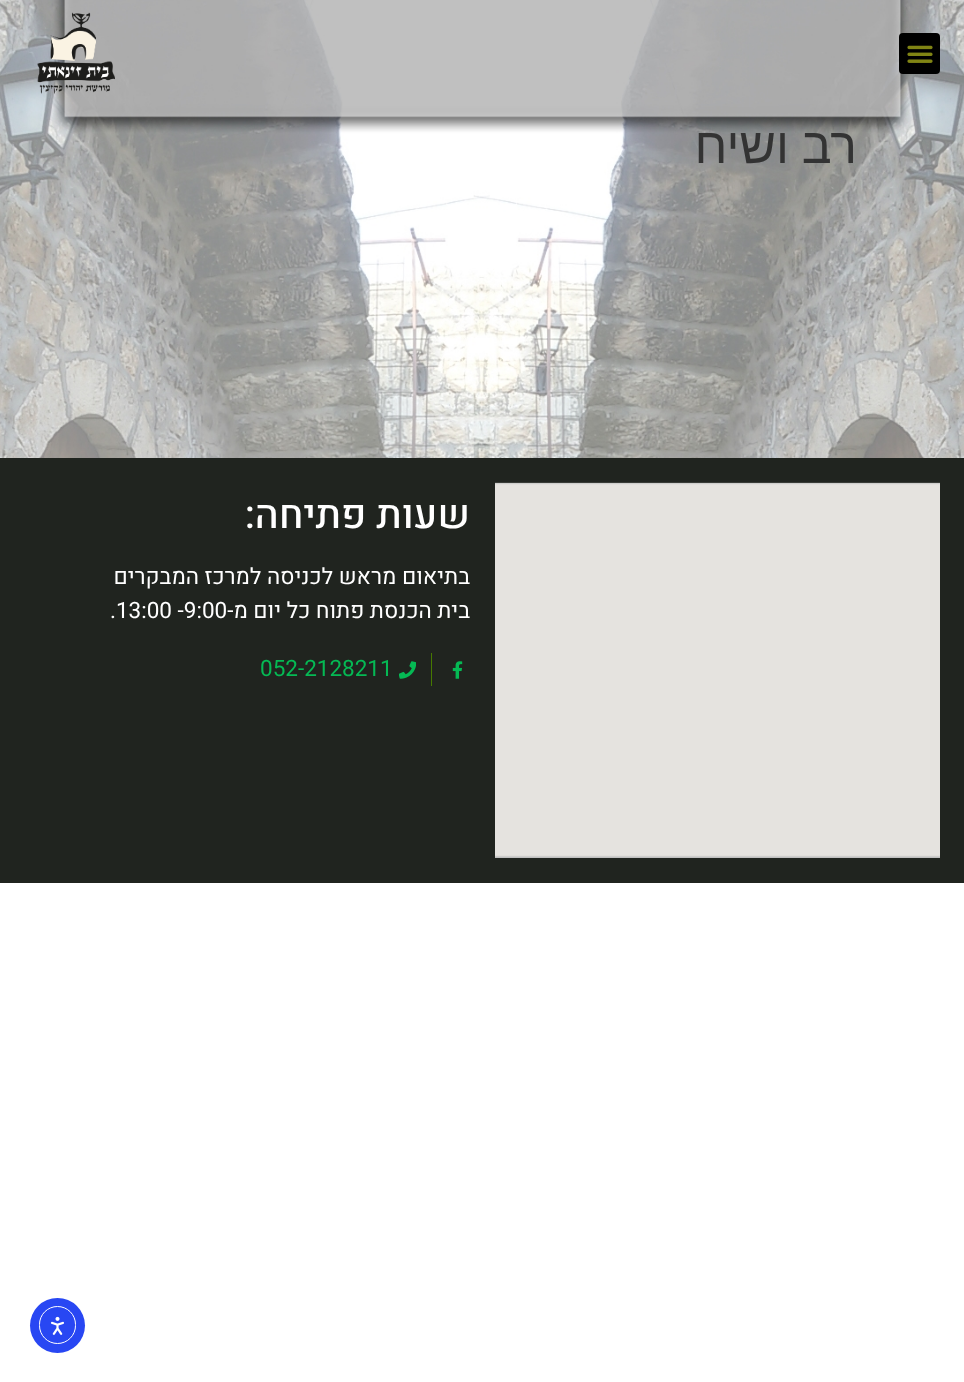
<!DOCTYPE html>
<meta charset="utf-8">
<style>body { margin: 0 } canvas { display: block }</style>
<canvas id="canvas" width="964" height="1382"></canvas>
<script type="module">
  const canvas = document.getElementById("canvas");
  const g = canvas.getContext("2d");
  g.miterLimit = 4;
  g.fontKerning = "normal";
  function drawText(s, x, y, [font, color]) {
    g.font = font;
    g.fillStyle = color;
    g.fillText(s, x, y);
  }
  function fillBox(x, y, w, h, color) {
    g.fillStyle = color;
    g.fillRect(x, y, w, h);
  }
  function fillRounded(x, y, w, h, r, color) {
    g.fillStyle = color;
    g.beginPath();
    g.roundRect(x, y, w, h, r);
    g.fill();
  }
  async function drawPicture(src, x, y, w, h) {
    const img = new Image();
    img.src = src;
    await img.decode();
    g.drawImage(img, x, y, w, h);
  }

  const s1 = ["50px Liberation Sans", "#333333"];
  const s2 = ["500 40px Heebo", "#FFFFFF"];
  const s3 = ["22.5px Heebo", "#FFFFFF"];
  const s4 = ["22.5px Heebo", "#05B954"];

  fillBox(0, 0, 964, 1382, "#FFFFFF");
  await drawPicture("pic1.png", 0, 0, 964, 458);
  fillRounded(899, 33, 41, 41, 4, "#000000");
  await drawPicture("pic2.png", 907, 45, 26, 18);
  await drawPicture("pic3.png", 37, 12, 78, 82);
  g.wordSpacing = "-1px";
  g.direction = "rtl";
  drawText("רב ושיח", 857, 163, s1);
  fillBox(0, 458, 964, 425, "#20241F");
  await drawPicture("pic4.png", 495, 482, 445, 376);
  g.wordSpacing = "0px";
  drawText("שעות פתיחה:", 470, 528, s2);
  drawText("בתיאום מראש לכניסה למרכז המבקרים", 470, 584, s3);
  drawText("בית הכנסת פתוח כל יום מ-", 470, 618, s3);
  g.direction = "ltr";
  drawText(".13:00 -9:00", 110, 618, s3);
  await drawPicture("pic5.png", 452, 661, 11, 18);
  fillBox(431, 653, 1, 33, "#467900");
  await drawPicture("pic6.png", 399, 661, 17, 18);
  drawText("052-2128211", 260, 676, s4);
  g.fillStyle = "#2847F3";
  g.beginPath();
  g.arc(57.5, 1325.5, 27.5, 0, Math.PI * 2);
  g.fill();
  g.beginPath();
  g.roundRect(39.5, 1306.5, 36, 37, 18);
  g.strokeStyle = "#FFFFFF";
  g.stroke();
  await drawPicture("pic7.png", 51, 1316, 13, 19);
</script>
